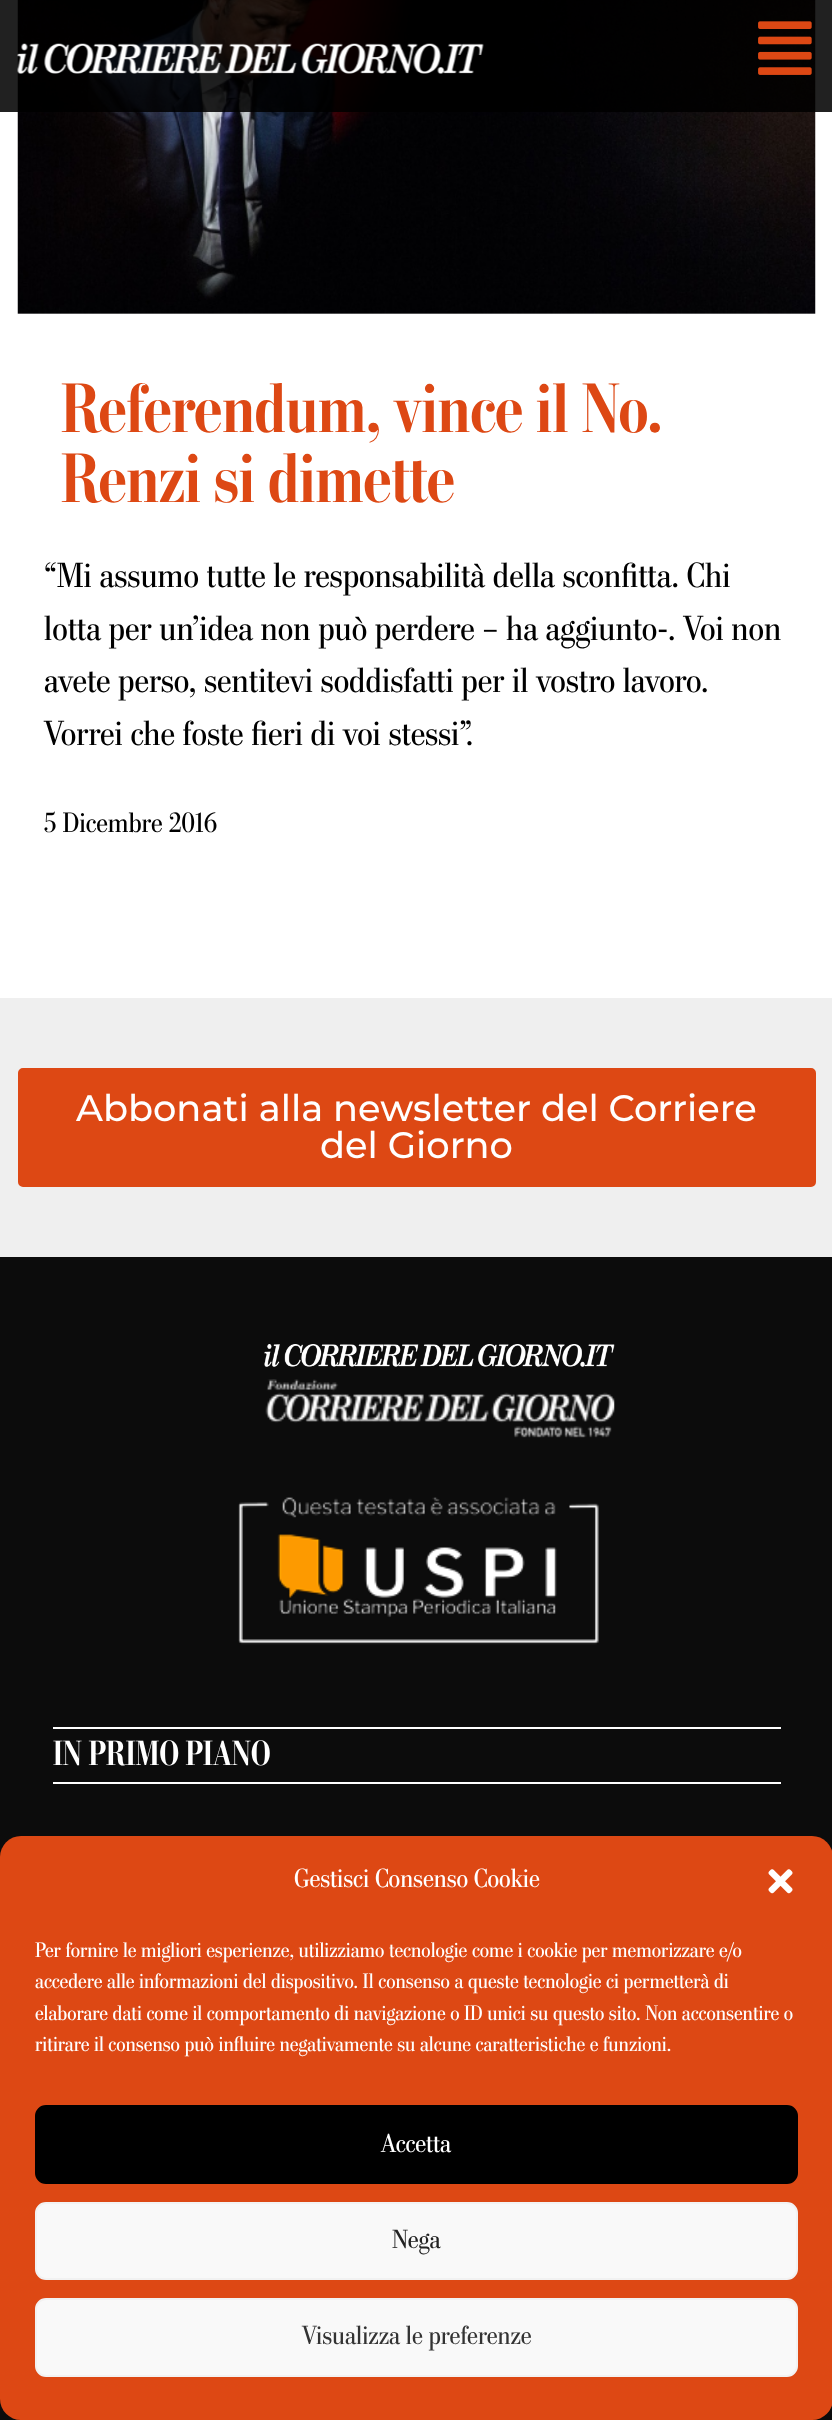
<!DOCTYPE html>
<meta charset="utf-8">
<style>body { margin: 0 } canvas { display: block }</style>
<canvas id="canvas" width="832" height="2420"></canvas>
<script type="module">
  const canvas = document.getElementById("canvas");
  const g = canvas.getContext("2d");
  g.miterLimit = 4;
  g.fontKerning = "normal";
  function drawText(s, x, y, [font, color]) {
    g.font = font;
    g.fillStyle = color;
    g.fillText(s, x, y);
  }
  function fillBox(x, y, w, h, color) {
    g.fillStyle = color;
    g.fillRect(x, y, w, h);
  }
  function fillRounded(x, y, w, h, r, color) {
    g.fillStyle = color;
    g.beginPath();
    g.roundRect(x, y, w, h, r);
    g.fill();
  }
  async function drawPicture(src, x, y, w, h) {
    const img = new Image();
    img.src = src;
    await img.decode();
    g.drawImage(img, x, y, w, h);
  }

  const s1 = ["bold 70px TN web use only", "#DD4814"];
  const s2 = ["35px TN web use only", "#000000"];
  const s3 = ["28px TN web use only", "#000000"];
  const s4 = ["500 36.75px Montserrat", "#FFFFFF"];
  const s5 = ["bold 35px TN web use only", "#FFFFFF"];
  const s6 = ["26.25px TN web use only", "#FFFFFF"];
  const s7 = ["21px TN web use only", "#FFFFFF"];
  const s8 = ["26.25px TN web use only", "#222222"];
  const s9 = ["26.25px TN web use only", "#333333"];

  fillBox(0, 0, 832, 2420, "#FFFFFF");
  await drawPicture("pic3.png", 17, 0, 799, 314);
  fillBox(0, 0, 832, 112, "rgba(0, 0, 0, 0.87)");
  await drawPicture("pic1.png", 17, 43, 467, 31);
  await drawPicture("pic2.png", 758, 21, 54, 54);
  drawText("Referendum, vince il No.", 61, 432, s1);
  drawText("Renzi si dimette", 61, 502, s1);
  drawText("“Mi assumo tutte le responsabilità della sconfitta. Chi", 44, 587, s2);
  drawText("lotta per un’idea non può perdere – ha aggiunto-. Voi non", 44, 640, s2);
  drawText("avete perso, sentitevi soddisfatti per il vostro lavoro.", 44, 692, s2);
  drawText("Vorrei che foste fieri di voi stessi”.", 44, 745, s2);
  drawText("5 Dicembre 2016", 44, 832, s3);
  fillBox(0, 998, 832, 259, "#EFEFEF");
  g.fillStyle = "#DD4814";
  g.beginPath();
  g.roundRect(19, 1069, 796, 117, 4);
  g.fill();
  g.strokeStyle = "#DD4814";
  g.lineWidth = 2;
  g.stroke();
  drawText("Abbonati alla newsletter del Corriere", 76, 1121, s4);
  drawText("del Giorno", 320, 1158, s4);
  fillBox(0, 1257, 832, 1163, "#0C0C0C");
  await drawPicture("pic4.png", 264, 1344, 351, 23);
  await drawPicture("pic5.png", 265, 1379, 350, 59);
  await drawPicture("pic6.png", 238, 1497, 361, 148);
  fillBox(53, 1727, 728, 2, "#FFFFFF");
  fillBox(53, 1782, 728, 2, "#FFFFFF");
  drawText("IN PRIMO PIANO", 53, 1765, s5);
  fillRounded(0, 1836, 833, 584, 21, "#DD4814");
  drawText("Gestisci Consenso Cookie", 294, 1887, s6);
  await drawPicture("pic7.png", 768, 1869, 25, 25);
  drawText("Per fornire le migliori esperienze, utilizziamo tecnologie come i cookie per memorizzare e/o", 35, 1957, s7);
  drawText("accedere alle informazioni del dispositivo. Il consenso a queste tecnologie ci permetterà di", 35, 1988, s7);
  drawText("elaborare dati come il comportamento di navigazione o ID unici su questo sito. Non acconsentire o", 35, 2020, s7);
  drawText("ritirare il consenso può influire negativamente su alcune caratteristiche e funzioni.", 35, 2051, s7);
  g.fillStyle = "#000000";
  g.beginPath();
  g.roundRect(36, 2106, 761, 77, 10);
  g.fill();
  g.strokeStyle = "#000000";
  g.stroke();
  drawText("Accetta", 381, 2152, s6);
  g.fillStyle = "#F9F9F9";
  g.beginPath();
  g.roundRect(36, 2203, 761, 76, 10);
  g.fill();
  g.strokeStyle = "#F2F2F2";
  g.stroke();
  drawText("Nega", 392, 2248, s8);
  g.fillStyle = "#F9F9F9";
  g.beginPath();
  g.roundRect(36, 2299, 761, 77, 10);
  g.fill();
  g.stroke();
  drawText("Visualizza le preferenze", 302, 2344, s9);
</script>
